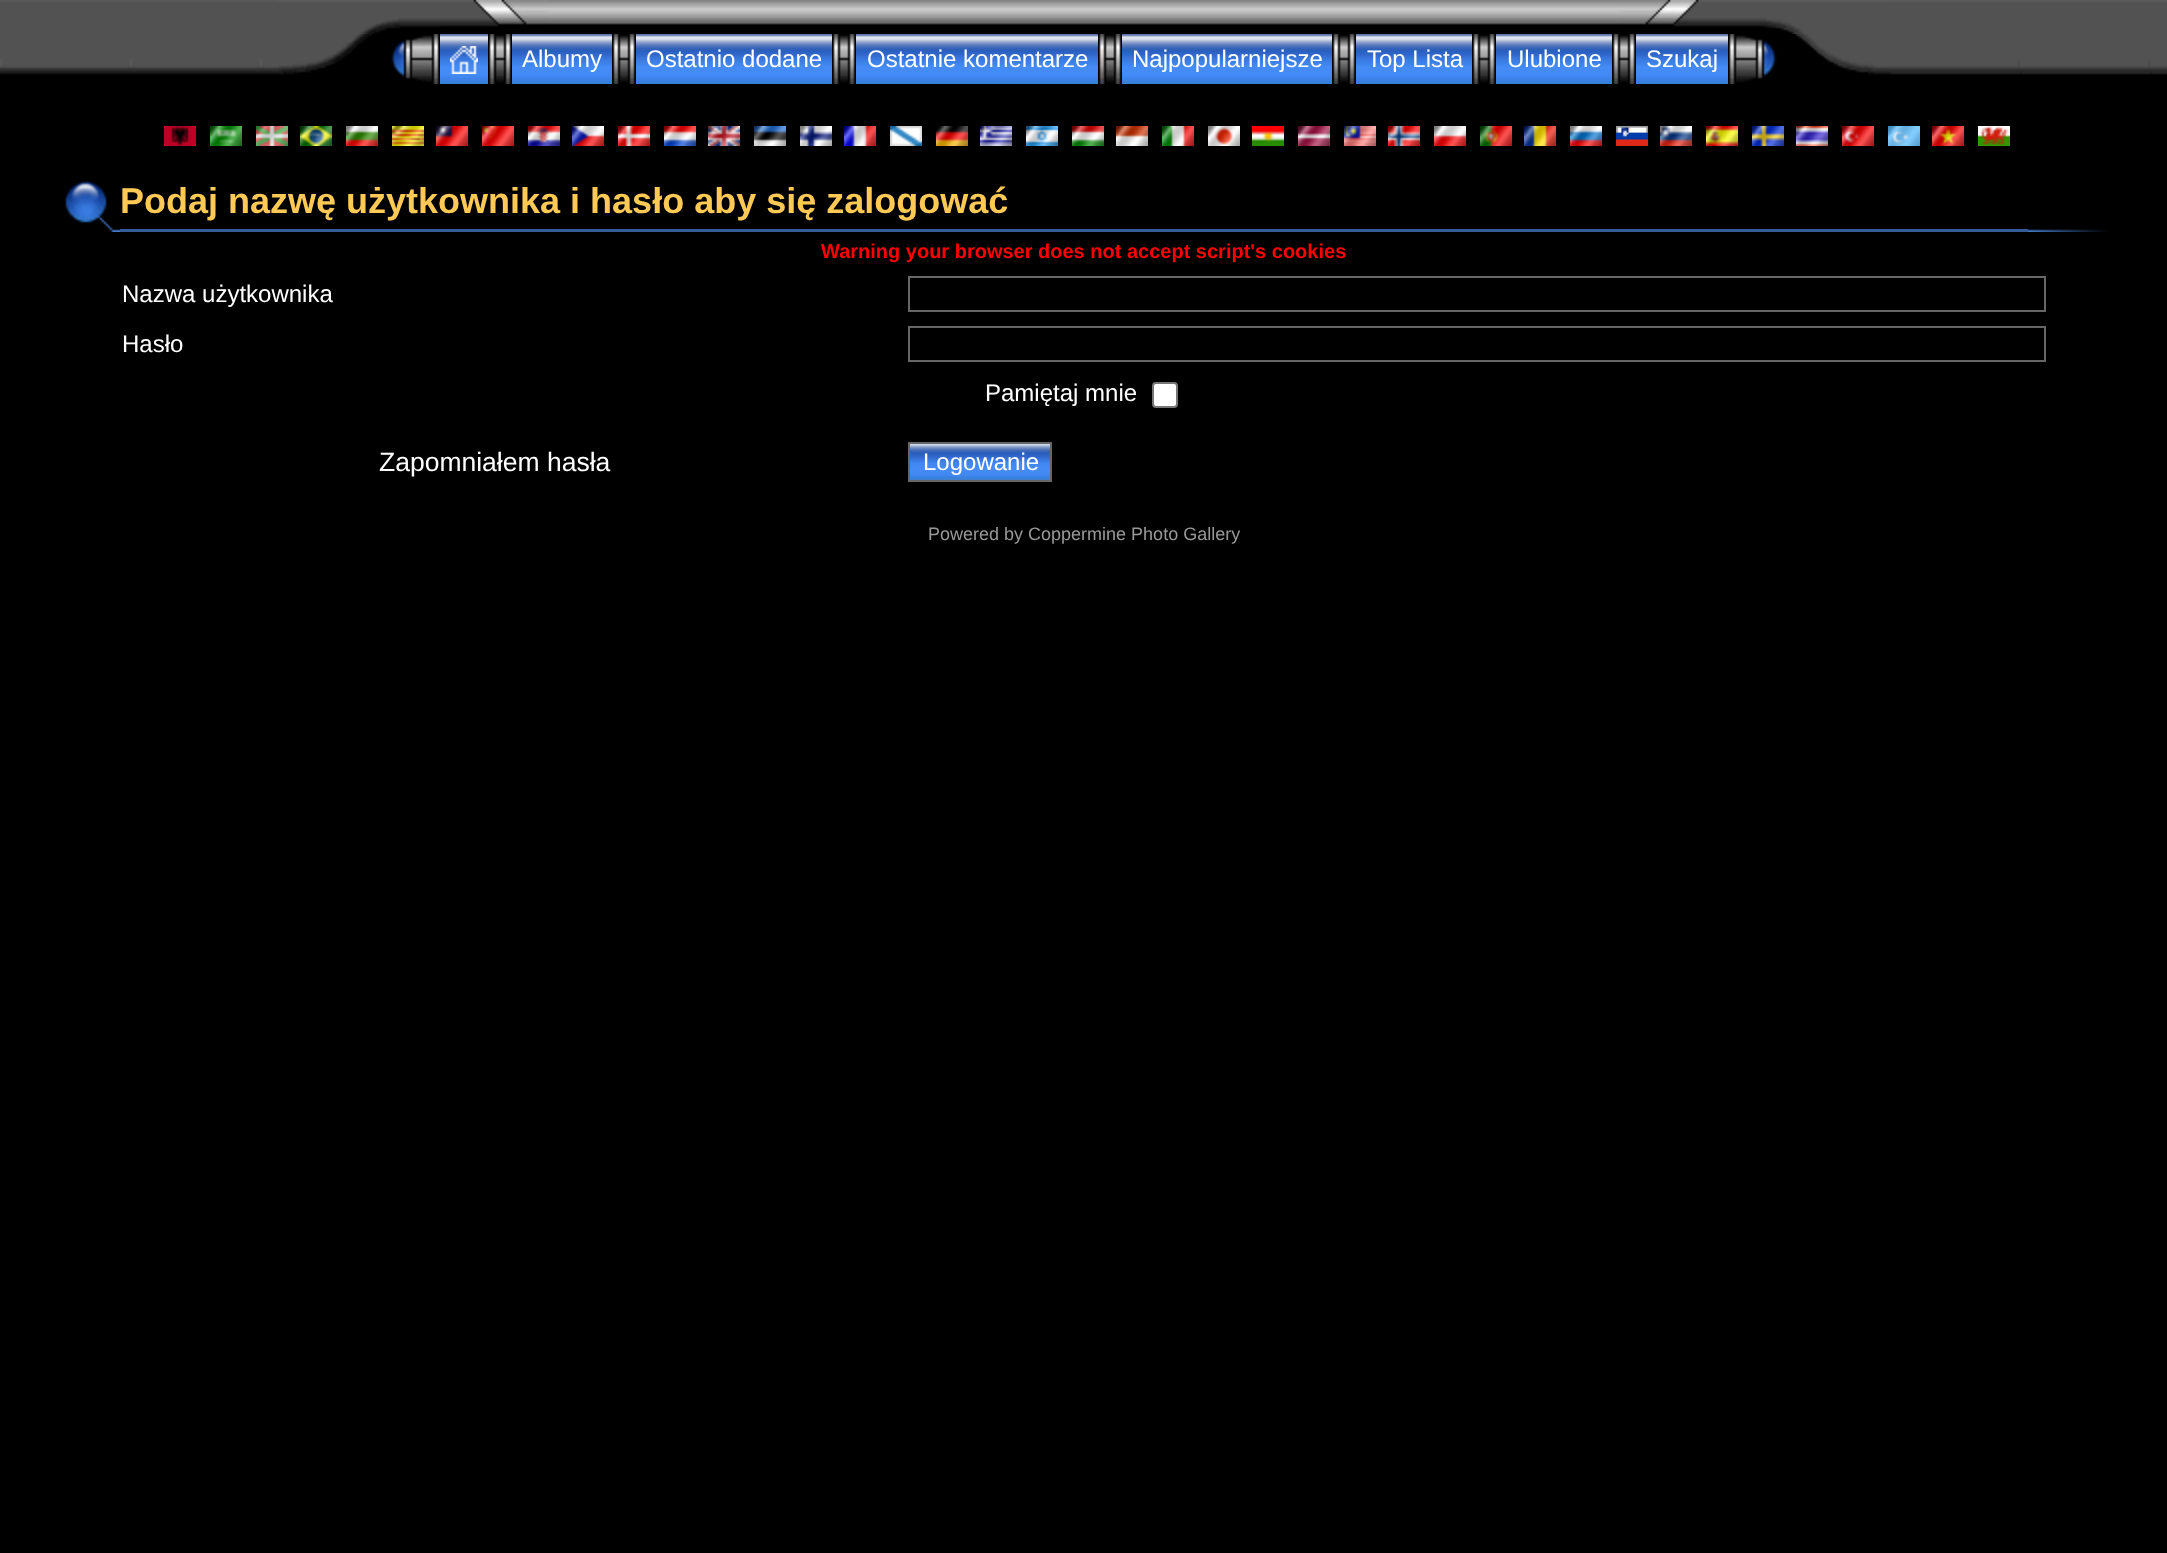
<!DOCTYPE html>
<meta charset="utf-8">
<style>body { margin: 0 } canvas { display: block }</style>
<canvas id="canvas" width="2167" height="1553"></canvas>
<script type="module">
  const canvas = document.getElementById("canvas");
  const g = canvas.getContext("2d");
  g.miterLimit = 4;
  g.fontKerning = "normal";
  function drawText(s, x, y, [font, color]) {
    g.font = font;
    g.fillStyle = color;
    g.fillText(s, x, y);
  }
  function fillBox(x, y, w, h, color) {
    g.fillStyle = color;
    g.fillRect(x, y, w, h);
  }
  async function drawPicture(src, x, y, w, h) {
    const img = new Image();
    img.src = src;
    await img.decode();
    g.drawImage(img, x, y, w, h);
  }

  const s1 = ["24px Liberation Sans", "#FFFFFF"];
  const s2 = ["bold 36px Liberation Sans", "#FFC956"];
  const s3 = ["bold 20px Liberation Sans", "#FF0000"];
  const s4 = ["26.5px Liberation Sans", "#FFFFFF"];
  const s5 = ["18px Liberation Sans", "#999999"];

  fillBox(0, 0, 2167, 1553, "#000000");
  await drawPicture("pic1.png", 0, 0, 278, 75);
  await drawPicture("pic2.png", 278, 0, 270, 34);
  await drawPicture("pic3.png", 548, 0, 1072, 25);
  await drawPicture("pic4.png", 1620, 0, 270, 34);
  await drawPicture("pic5.png", 278, 34, 94, 41);
  await drawPicture("pic6.png", 391, 34, 48, 50);
  await drawPicture("pic7.png", 440, 34, 48, 50);
  await drawPicture("pic8.png", 450, 46, 28, 28);
  await drawPicture("pic9.png", 489, 34, 22, 50);
  await drawPicture("pic10.png", 512, 34, 100, 50);
  drawText("Albumy", 522, 67, s1);
  await drawPicture("pic9.png", 613, 34, 22, 50);
  await drawPicture("pic11.png", 636, 34, 196, 50);
  drawText("Ostatnio dodane", 646, 67, s1);
  await drawPicture("pic9.png", 833, 34, 22, 50);
  await drawPicture("pic12.png", 856, 34, 242, 50);
  drawText("Ostatnie komentarze", 867, 67, s1);
  await drawPicture("pic9.png", 1099, 34, 22, 50);
  await drawPicture("pic13.png", 1122, 34, 210, 50);
  drawText("Najpopularniejsze", 1132, 67, s1);
  await drawPicture("pic9.png", 1333, 34, 22, 50);
  await drawPicture("pic14.png", 1356, 34, 116, 50);
  drawText("Top Lista", 1367, 67, s1);
  await drawPicture("pic9.png", 1473, 34, 22, 50);
  await drawPicture("pic14.png", 1496, 34, 116, 50);
  drawText("Ulubione", 1507, 67, s1);
  await drawPicture("pic9.png", 1613, 34, 22, 50);
  await drawPicture("pic15.png", 1636, 34, 92, 50);
  drawText("Szukaj", 1646, 67, s1);
  await drawPicture("pic16.png", 1728, 34, 52, 50);
  await drawPicture("pic17.png", 1795, 34, 95, 41);
  await drawPicture("pic18.png", 1890, 0, 277, 75);
  await drawPicture("pic19.png", 164, 126, 32, 20);
  await drawPicture("pic20.png", 210, 126, 32, 20);
  await drawPicture("pic21.png", 256, 126, 32, 20);
  await drawPicture("pic22.png", 300, 126, 32, 20);
  await drawPicture("pic23.png", 346, 126, 32, 20);
  await drawPicture("pic24.png", 392, 126, 32, 20);
  await drawPicture("pic25.png", 436, 126, 32, 20);
  await drawPicture("pic26.png", 482, 126, 32, 20);
  await drawPicture("pic27.png", 528, 126, 32, 20);
  await drawPicture("pic28.png", 572, 126, 32, 20);
  await drawPicture("pic29.png", 618, 126, 32, 20);
  await drawPicture("pic30.png", 664, 126, 32, 20);
  await drawPicture("pic31.png", 708, 126, 32, 20);
  await drawPicture("pic32.png", 754, 126, 32, 20);
  await drawPicture("pic33.png", 800, 126, 32, 20);
  await drawPicture("pic34.png", 844, 126, 32, 20);
  await drawPicture("pic35.png", 890, 126, 32, 20);
  await drawPicture("pic36.png", 936, 126, 32, 20);
  await drawPicture("pic37.png", 980, 126, 32, 20);
  await drawPicture("pic38.png", 1026, 126, 32, 20);
  await drawPicture("pic39.png", 1072, 126, 32, 20);
  await drawPicture("pic40.png", 1116, 126, 32, 20);
  await drawPicture("pic41.png", 1162, 126, 32, 20);
  await drawPicture("pic42.png", 1208, 126, 32, 20);
  await drawPicture("pic43.png", 1252, 126, 32, 20);
  await drawPicture("pic44.png", 1298, 126, 32, 20);
  await drawPicture("pic45.png", 1344, 126, 32, 20);
  await drawPicture("pic46.png", 1388, 126, 32, 20);
  await drawPicture("pic47.png", 1434, 126, 32, 20);
  await drawPicture("pic48.png", 1480, 126, 32, 20);
  await drawPicture("pic49.png", 1524, 126, 32, 20);
  await drawPicture("pic50.png", 1570, 126, 32, 20);
  await drawPicture("pic51.png", 1616, 126, 32, 20);
  await drawPicture("pic52.png", 1660, 126, 32, 20);
  await drawPicture("pic53.png", 1706, 126, 32, 20);
  await drawPicture("pic54.png", 1752, 126, 32, 20);
  await drawPicture("pic55.png", 1796, 126, 32, 20);
  await drawPicture("pic56.png", 1842, 126, 32, 20);
  await drawPicture("pic57.png", 1888, 126, 32, 20);
  await drawPicture("pic58.png", 1932, 126, 32, 20);
  await drawPicture("pic59.png", 1978, 126, 32, 20);
  await drawPicture("pic60.png", 60, 181, 60, 51);
  fillBox(120, 229, 1908, 3, "#335C98");
  drawText("Podaj nazwę użytkownika i hasło aby się zalogować", 120, 213, s2);
  await drawPicture("pic61.png", 2028, 229, 80, 3);
  drawText("Warning your browser does not accept script's cookies", 821, 258, s3);
  drawText("Nazwa użytkownika", 122, 302, s1);
  g.strokeStyle = "#666666";
  g.lineWidth = 2;
  g.strokeRect(909, 277, 1136, 34);
  drawText("Hasło", 122, 352, s1);
  g.strokeRect(909, 327, 1136, 34);
  drawText("Pamiętaj mnie", 985, 401, s1);
  g.beginPath();
  g.roundRect(1153, 383, 24, 24, 3);
  g.fill();
  g.strokeStyle = "#767676";
  g.stroke();
  drawText("Zapomniałem hasła", 379, 471, s4);
  await drawPicture("pic62.png", 910, 444, 140, 36);
  g.strokeStyle = "#666666";
  g.strokeRect(909, 443, 142, 38);
  drawText("Logowanie", 923, 470, s1);
  drawText("Powered by Coppermine Photo Gallery", 928, 540, s5);
</script>
